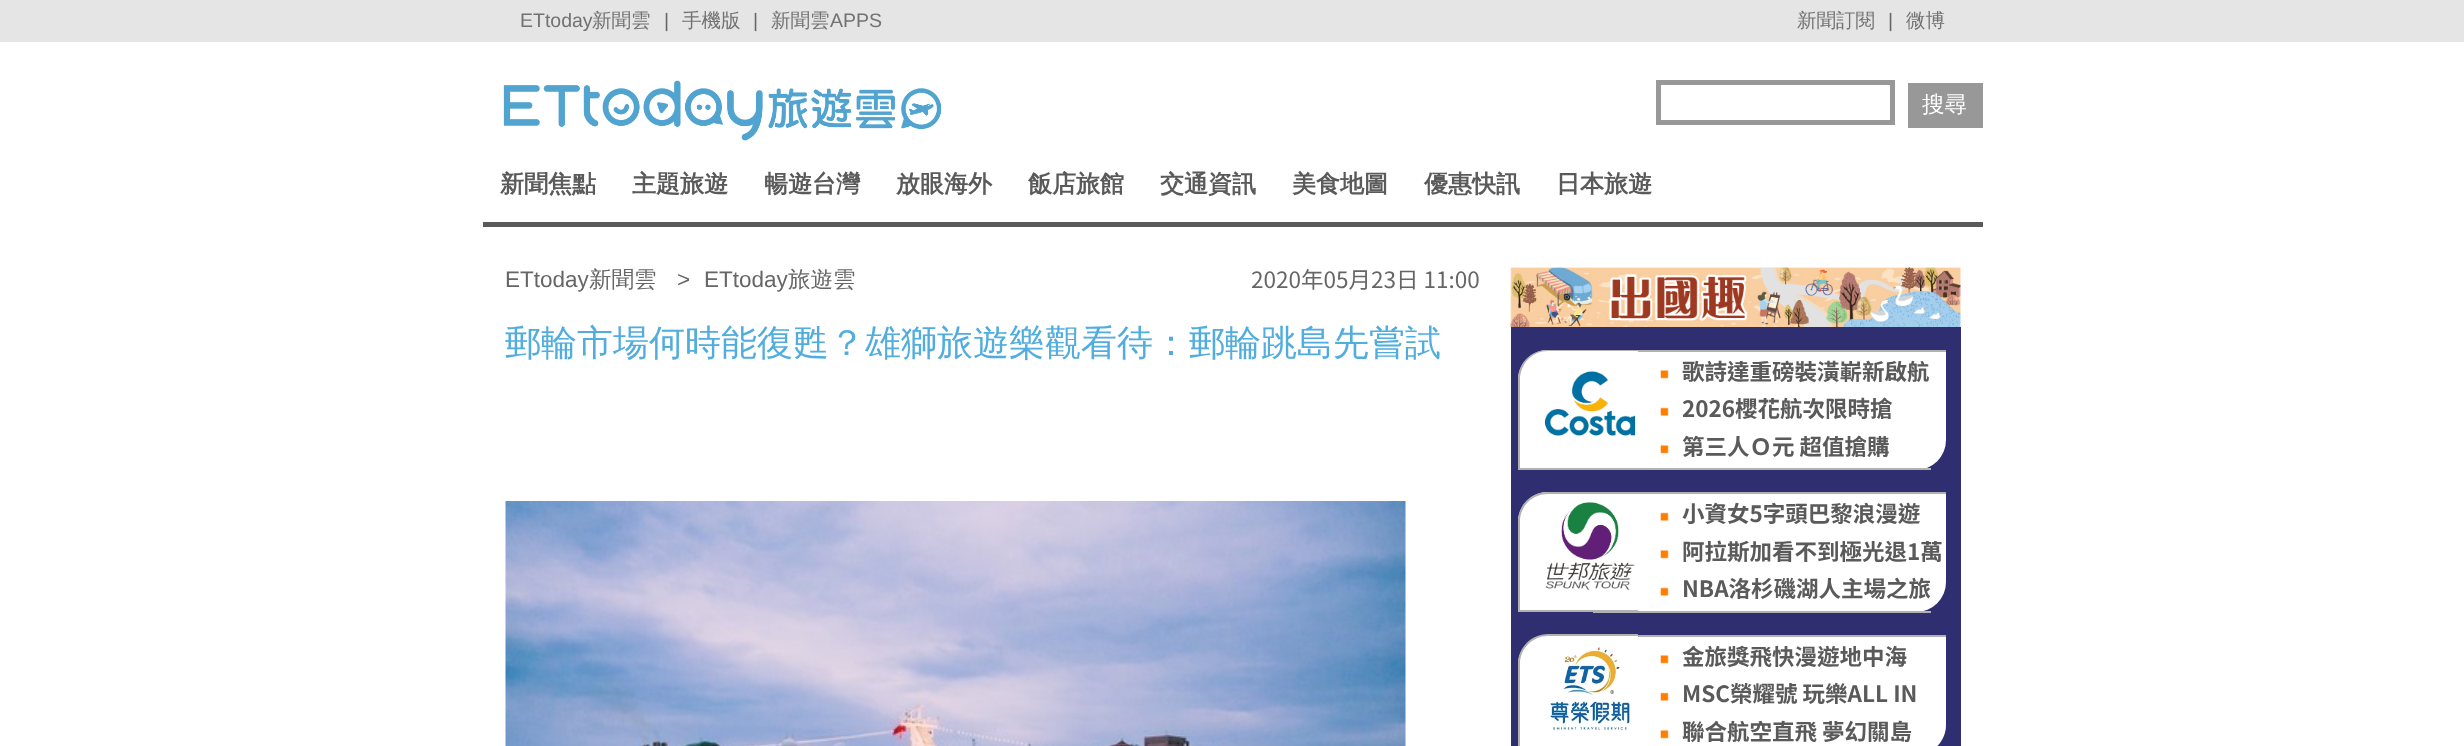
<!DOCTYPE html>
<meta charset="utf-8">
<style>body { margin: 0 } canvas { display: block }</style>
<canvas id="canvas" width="2464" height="746"></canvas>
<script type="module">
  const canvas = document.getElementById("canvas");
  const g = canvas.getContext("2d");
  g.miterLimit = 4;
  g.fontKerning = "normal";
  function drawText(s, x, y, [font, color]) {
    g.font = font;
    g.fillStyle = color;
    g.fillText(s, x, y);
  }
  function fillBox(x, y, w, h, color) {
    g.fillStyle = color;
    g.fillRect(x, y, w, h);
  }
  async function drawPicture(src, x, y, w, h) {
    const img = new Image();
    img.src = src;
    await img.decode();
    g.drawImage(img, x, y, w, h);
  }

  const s1 = ["19.5px Liberation Sans", "#737171"];
  const s2 = ["500 19.5px WenQuanYi Zen Hei", "#737171"];
  const s3 = ["19.5px Liberation Sans", "#666666"];
  const s4 = ["500 22.5px WenQuanYi Zen Hei", "#FFFFFF"];
  const s5 = ["bold 24px WenQuanYi Zen Hei", "#5A5A5A"];
  const s6 = ["22.5px Liberation Sans", "#666666"];
  const s7 = ["500 22.5px WenQuanYi Zen Hei", "#666666"];
  const s8 = ["22.5px Noto Sans TC", "#666666"];
  const s9 = ["500 36px WenQuanYi Zen Hei", "#51ADDE"];
  const s10 = ["bold 22.5px Noto Sans TC", "#5A5A5A"];

  fillBox(0, 0, 2464, 746, "#FFFFFF");
  fillBox(0, 0, 2464, 42, "#E5E5E5");
  drawText("ETtoday", 520, 27, s1);
  drawText("新聞雲", 592, 27, s2);
  drawText("|", 664, 27, s3);
  drawText("手機版", 682, 27, s2);
  drawText("|", 753, 27, s3);
  drawText("新聞雲", 771, 27, s2);
  drawText("APPS", 830, 27, s1);
  drawText("新聞訂閱", 1797, 27, s2);
  drawText("|", 1888, 27, s3);
  drawText("微博", 1906, 27, s2);
  await drawPicture("pic1.png", 503, 80, 439, 61);
  g.strokeStyle = "#989898";
  g.lineWidth = 5;
  g.strokeRect(1658.5, 82.5, 234, 40);
  fillBox(1908, 83, 75, 45, "#989898");
  drawText("搜尋", 1922, 112, s4);
  fillBox(483, 222, 1500, 5, "#5A5A5A");
  drawText("新聞焦點", 500, 192, s5);
  drawText("主題旅遊", 632, 192, s5);
  drawText("暢遊台灣", 764, 192, s5);
  drawText("放眼海外", 896, 192, s5);
  drawText("飯店旅館", 1028, 192, s5);
  drawText("交通資訊", 1160, 192, s5);
  drawText("美食地圖", 1292, 192, s5);
  drawText("優惠快訊", 1424, 192, s5);
  drawText("日本旅遊", 1556, 192, s5);
  drawText("ETtoday", 505, 287, s6);
  drawText("新聞雲", 589, 287, s7);
  drawText(">", 677, 287, s6);
  drawText("ETtoday", 704, 287, s6);
  drawText("旅遊雲", 788, 287, s7);
  drawText("2020年05月23日 11:00", 1251, 288, s8);
  drawText("郵輪市場何時能復甦？雄獅旅遊樂觀看待：郵輪跳島先嘗試", 505, 355, s9);
  await drawPicture("pic2.png", 505, 501, 901, 245);
  await drawPicture("pic3.png", 1510, 267, 451, 60);
  fillBox(1511, 327, 450, 419, "#2E2E70");
  g.fillStyle = "#FFFFFF";
  g.beginPath();
  g.roundRect(1593, 350, 353, 120, [0, 0, 30, 0]);
  g.fill();
  g.beginPath();
  g.roundRect(1518, 350, 120, 120, [30, 0, 0, 0]);
  g.fill();
  g.fillStyle = "#B1B1B1";
  g.beginPath();
  g.moveTo(1548, 350);
  g.lineTo(1638, 350);
  g.lineTo(1638, 470);
  g.lineTo(1518, 470);
  g.lineTo(1518, 380);
  g.bezierCurveTo(1518, 363, 1531, 350, 1548, 350);
  g.closePath();
  g.moveTo(1548, 351);
  g.lineTo(1638, 351);
  g.lineTo(1638, 468);
  g.lineTo(1520, 468);
  g.lineTo(1520, 380);
  g.bezierCurveTo(1520, 364, 1532, 351, 1548, 351);
  g.closePath();
  g.fill("evenodd");
  await drawPicture("pic4.png", 1544, 371, 92, 65);
  fillBox(1638, 350, 308, 2, "#B1B1B1");
  fillBox(1638, 468, 293, 2, "#B1B1B1");
  await drawPicture("pic5.png", 1660, 370, 9, 9);
  drawText("歌詩達重磅裝潢嶄新啟航", 1682, 380, s10);
  await drawPicture("pic6.png", 1660, 407, 9, 9);
  drawText("2026櫻花航次限時搶", 1682, 417, s10);
  await drawPicture("pic5.png", 1660, 445, 9, 9);
  drawText("第三人Ｏ元 超值搶購", 1682, 455, s10);
  g.fillStyle = "#FFFFFF";
  g.beginPath();
  g.roundRect(1593, 492, 353, 120, [0, 0, 30, 0]);
  g.fill();
  fillBox(1593, 611, 338, 2, "#B1B1B1");
  g.fillStyle = "#FFFFFF";
  g.beginPath();
  g.roundRect(1518, 492, 120, 120, [30, 0, 0, 0]);
  g.fill();
  g.fillStyle = "#B1B1B1";
  g.beginPath();
  g.moveTo(1548, 492);
  g.lineTo(1638, 492);
  g.lineTo(1638, 612);
  g.lineTo(1518, 612);
  g.lineTo(1518, 522);
  g.bezierCurveTo(1518, 505, 1531, 492, 1548, 492);
  g.closePath();
  g.moveTo(1548, 494);
  g.lineTo(1638, 494);
  g.lineTo(1638, 610);
  g.lineTo(1520, 610);
  g.lineTo(1520, 522);
  g.bezierCurveTo(1520, 506, 1532, 494, 1548, 494);
  g.closePath();
  g.fill("evenodd");
  await drawPicture("pic7.png", 1545, 502, 90, 88);
  fillBox(1638, 492, 308, 2, "#B1B1B1");
  await drawPicture("pic6.png", 1660, 512, 9, 9);
  drawText("小資女5字頭巴黎浪漫遊", 1682, 522, s10);
  await drawPicture("pic5.png", 1660, 550, 9, 9);
  drawText("阿拉斯加看不到極光退1萬", 1682, 560, s10);
  await drawPicture("pic6.png", 1660, 587, 9, 9);
  drawText("NBA洛杉磯湖人主場之旅", 1682, 597, s10);
  g.fillStyle = "#FFFFFF";
  g.beginPath();
  g.moveTo(1593, 635);
  g.lineTo(1946, 635);
  g.lineTo(1946, 725);
  g.bezierCurveTo(1946, 741.5, 1932.5, 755, 1916, 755);
  g.lineTo(1593, 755);
  g.closePath();
  g.fill();
  g.beginPath();
  g.moveTo(1548, 635);
  g.lineTo(1638, 635);
  g.lineTo(1638, 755);
  g.lineTo(1518, 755);
  g.lineTo(1518, 665);
  g.bezierCurveTo(1518, 648.5, 1531.5, 635, 1548, 635);
  g.closePath();
  g.fill();
  g.fillStyle = "#B1B1B1";
  g.beginPath();
  g.moveTo(1548, 634);
  g.lineTo(1638, 634);
  g.lineTo(1638, 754);
  g.lineTo(1518, 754);
  g.lineTo(1518, 664);
  g.bezierCurveTo(1518, 648, 1531, 634, 1548, 634);
  g.closePath();
  g.moveTo(1548, 636);
  g.lineTo(1638, 636);
  g.lineTo(1638, 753);
  g.lineTo(1520, 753);
  g.lineTo(1520, 664);
  g.bezierCurveTo(1520, 649, 1532, 636, 1548, 636);
  g.closePath();
  g.fill("evenodd");
  await drawPicture("pic8.png", 1550, 647, 80, 84);
  fillBox(1638, 635, 308, 2, "#B1B1B1");
  await drawPicture("pic5.png", 1660, 655, 9, 9);
  drawText("金旅獎飛快漫遊地中海", 1682, 665, s10);
  await drawPicture("pic6.png", 1660, 692, 9, 9);
  drawText("MSC榮耀號 玩樂ALL IN", 1682, 702, s10);
  await drawPicture("pic5.png", 1660, 730, 9, 9);
  drawText("聯合航空直飛 夢幻關島", 1682, 740, s10);
</script>
